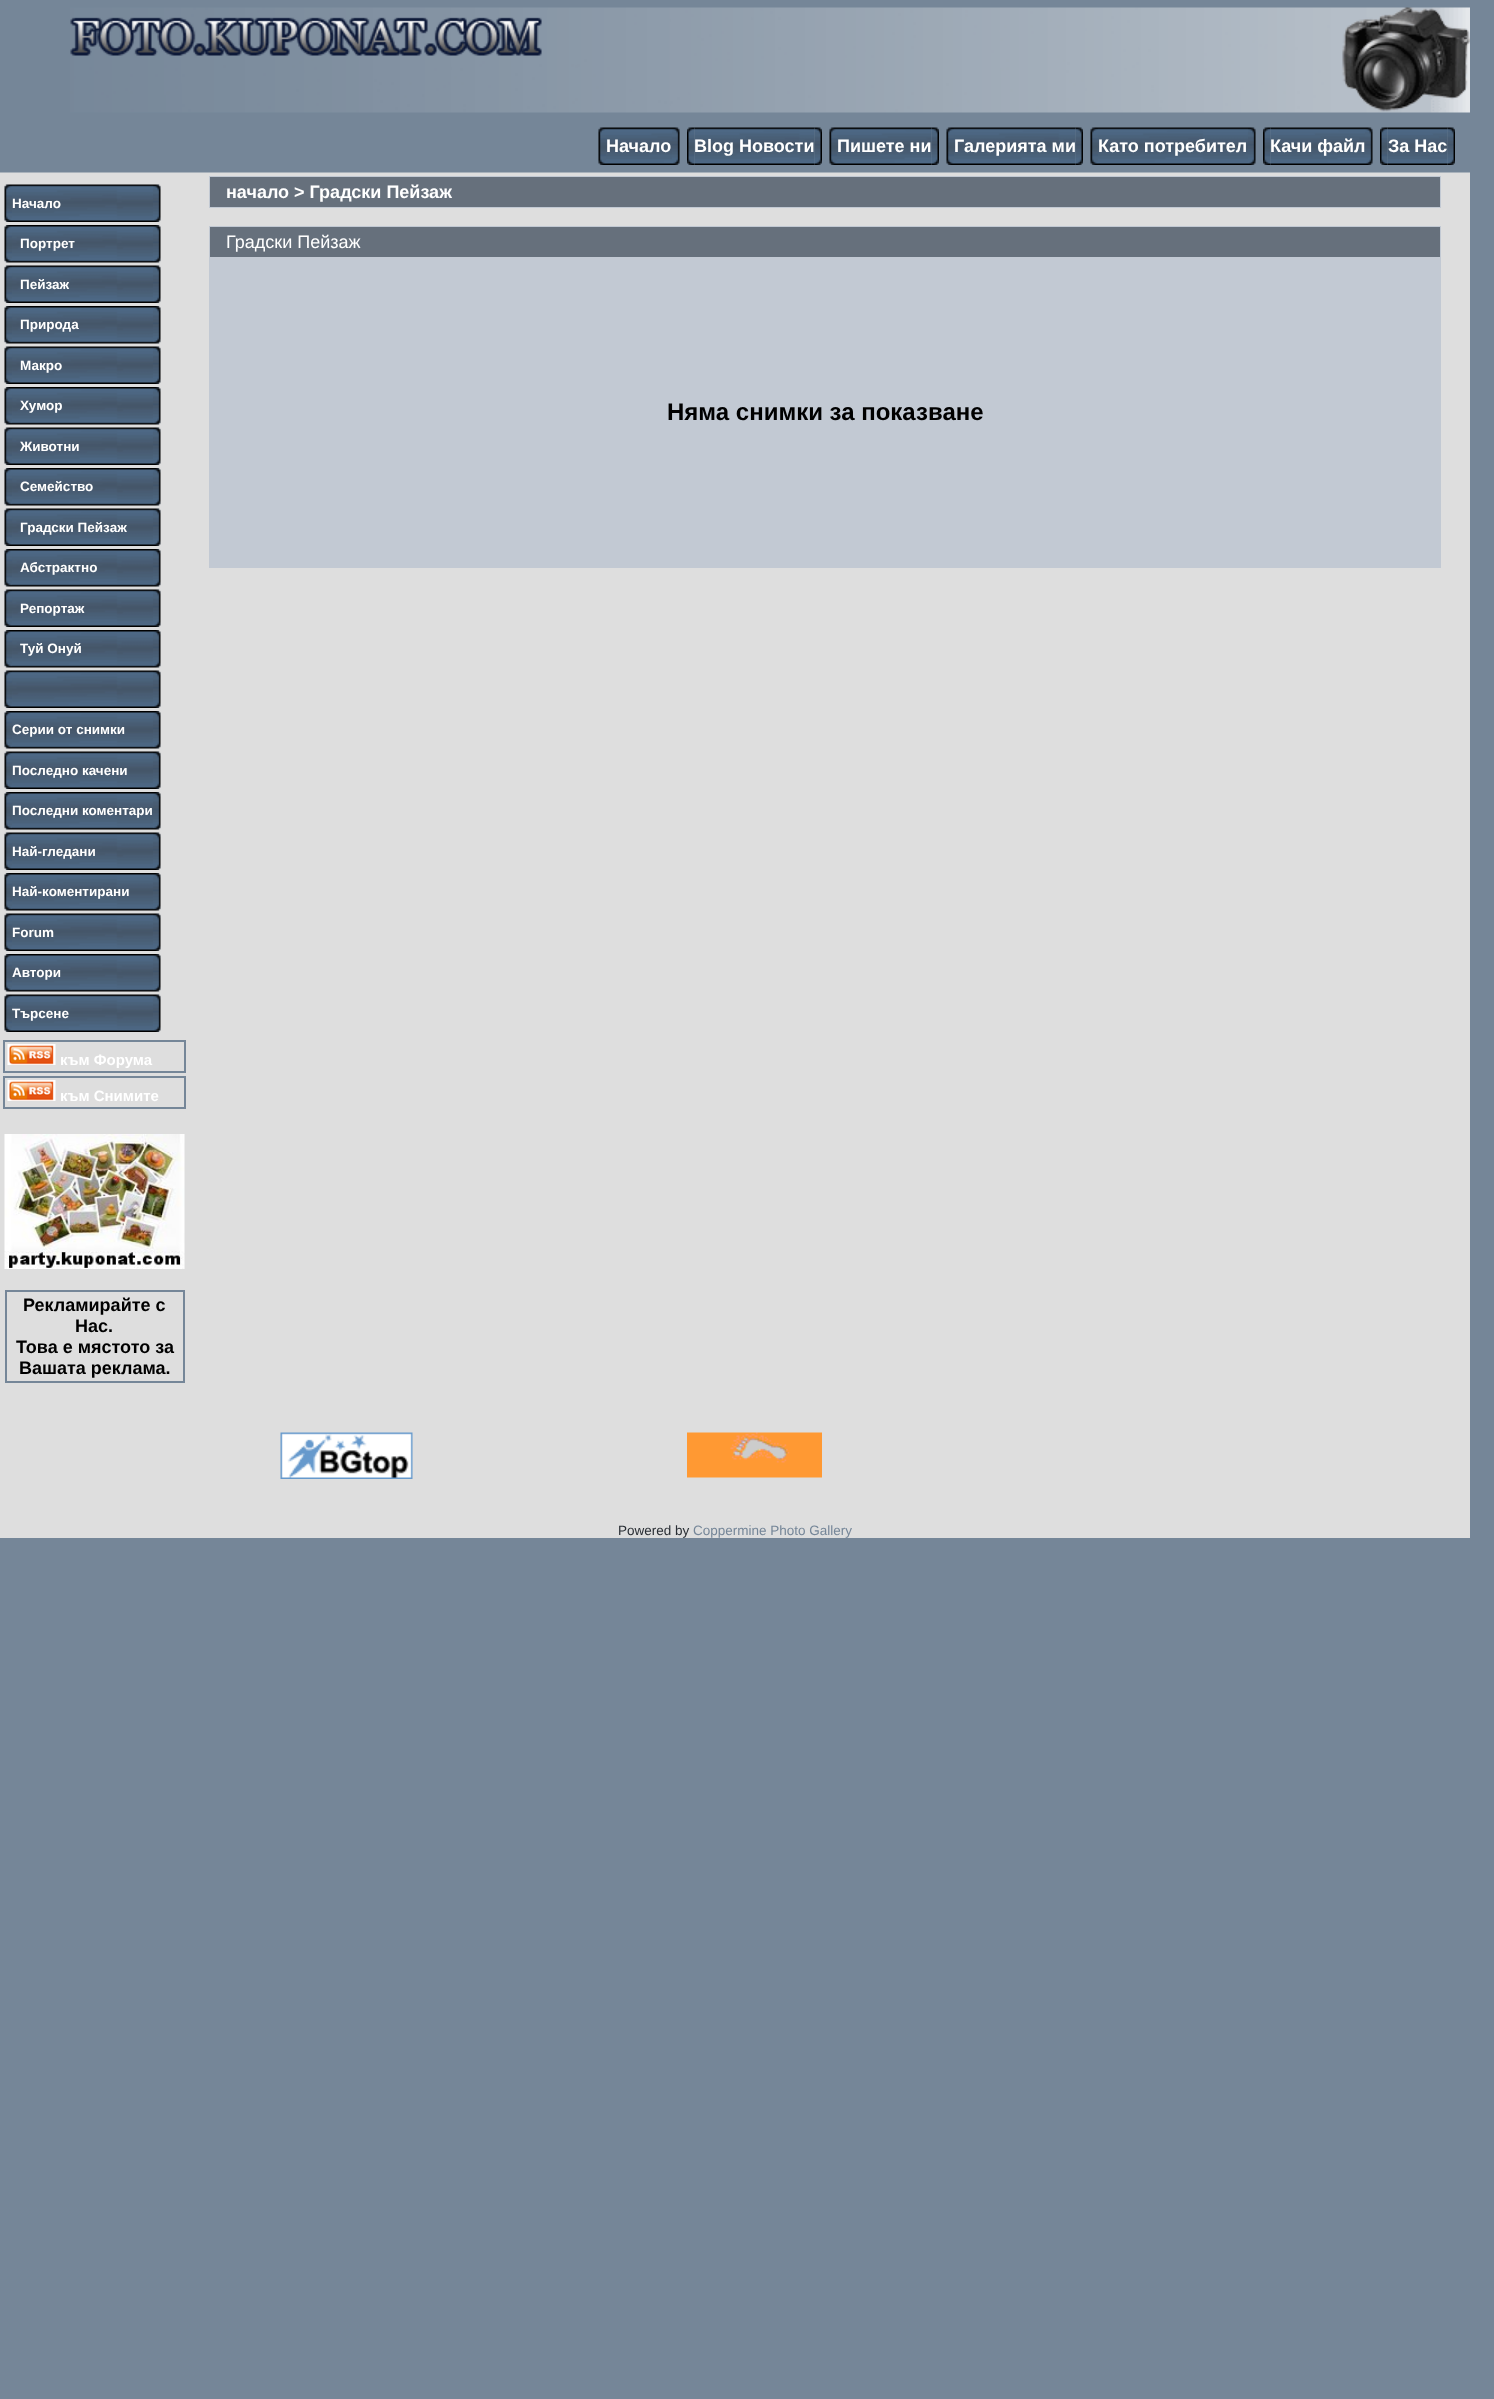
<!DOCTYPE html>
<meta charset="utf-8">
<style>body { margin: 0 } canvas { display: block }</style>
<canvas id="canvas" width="1494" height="2399"></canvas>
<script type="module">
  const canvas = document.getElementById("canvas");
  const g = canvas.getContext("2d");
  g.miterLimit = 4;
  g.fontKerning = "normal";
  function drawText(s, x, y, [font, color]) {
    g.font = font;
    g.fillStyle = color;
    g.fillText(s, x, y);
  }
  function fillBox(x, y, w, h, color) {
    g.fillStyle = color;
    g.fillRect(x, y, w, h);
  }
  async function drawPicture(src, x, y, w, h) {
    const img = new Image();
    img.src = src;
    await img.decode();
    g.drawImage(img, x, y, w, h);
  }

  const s1 = ["bold 18px Liberation Sans", "#FFFFFF"];
  const s2 = ["bold 13.5px Liberation Sans", "#FFFFFF"];
  const s3 = ["bold 15px Liberation Sans", "#FFFFFF"];
  const s4 = ["bold 18px Liberation Sans", "#000000"];
  const s5 = ["18px Liberation Sans", "#FFFFFF"];
  const s6 = ["bold 24px Liberation Sans", "#000000"];
  const s7 = ["13.5px Liberation Sans", "#292E34"];
  const s8 = ["13.5px Liberation Sans", "#758698"];

  fillBox(0, 0, 1494, 2399, "#758698");
  fillBox(0, 173, 1470, 1365, "#DEDEDE");
  await drawPicture("pic1.png", 70, 7, 1400, 106);
  await drawPicture("pic2.png", 598, 127, 8, 38);
  await drawPicture("pic3.png", 606, 127, 66, 38);
  drawText("Начало", 606, 152, s1);
  await drawPicture("pic4.png", 672, 127, 8, 38);
  await drawPicture("pic6.png", 694, 127, 121, 38);
  await drawPicture("pic5.png", 687, 127, 8, 38);
  drawText("Blog Новости", 694, 152, s1);
  await drawPicture("pic7.png", 814, 127, 8, 38);
  await drawPicture("pic8.png", 829, 127, 8, 38);
  await drawPicture("pic9.png", 837, 127, 95, 38);
  drawText("Пишете ни", 837, 152, s1);
  await drawPicture("pic10.png", 931, 127, 8, 38);
  await drawPicture("pic8.png", 946, 127, 8, 38);
  await drawPicture("pic11.png", 954, 127, 122, 38);
  drawText("Галерията ми", 954, 152, s1);
  await drawPicture("pic7.png", 1075, 127, 8, 38);
  await drawPicture("pic8.png", 1090, 127, 8, 38);
  await drawPicture("pic12.png", 1098, 127, 150, 38);
  drawText("Като потребител", 1098, 152, s1);
  await drawPicture("pic13.png", 1248, 127, 8, 38);
  await drawPicture("pic15.png", 1270, 127, 95, 38);
  await drawPicture("pic14.png", 1263, 127, 8, 38);
  drawText("Качи файл", 1270, 152, s1);
  await drawPicture("pic13.png", 1365, 127, 8, 38);
  await drawPicture("pic17.png", 1387, 127, 61, 38);
  await drawPicture("pic16.png", 1380, 127, 8, 38);
  drawText("За Нас", 1388, 152, s1);
  await drawPicture("pic18.png", 1447, 127, 8, 38);
  fillBox(0, 172, 1470, 1, "#A9B2BB");
  await drawPicture("pic19.png", 4, 184, 8, 38);
  await drawPicture("pic20.png", 12, 184, 141, 38);
  drawText("Начало", 12, 208, s2);
  await drawPicture("pic21.png", 153, 184, 8, 38);
  await drawPicture("pic22.png", 4, 225, 8, 38);
  await drawPicture("pic23.png", 12, 225, 141, 38);
  drawText("Портрет", 20, 248, s2);
  await drawPicture("pic24.png", 153, 225, 8, 38);
  await drawPicture("pic19.png", 4, 265, 8, 38);
  await drawPicture("pic25.png", 12, 265, 141, 38);
  drawText("Пейзаж", 20, 289, s2);
  await drawPicture("pic21.png", 153, 265, 8, 38);
  await drawPicture("pic22.png", 4, 306, 8, 38);
  await drawPicture("pic26.png", 12, 306, 141, 38);
  drawText("Природа", 20, 329, s2);
  await drawPicture("pic24.png", 153, 306, 8, 38);
  await drawPicture("pic19.png", 4, 346, 8, 38);
  await drawPicture("pic27.png", 12, 346, 141, 38);
  drawText("Макро", 20, 370, s2);
  await drawPicture("pic21.png", 153, 346, 8, 38);
  await drawPicture("pic22.png", 4, 387, 8, 38);
  await drawPicture("pic28.png", 12, 387, 141, 38);
  drawText("Хумор", 20, 410, s2);
  await drawPicture("pic24.png", 153, 387, 8, 38);
  await drawPicture("pic19.png", 4, 427, 8, 38);
  await drawPicture("pic29.png", 12, 427, 141, 38);
  drawText("Животни", 20, 451, s2);
  await drawPicture("pic21.png", 153, 427, 8, 38);
  await drawPicture("pic22.png", 4, 468, 8, 38);
  await drawPicture("pic30.png", 12, 468, 141, 38);
  drawText("Семейство", 20, 491, s2);
  await drawPicture("pic24.png", 153, 468, 8, 38);
  await drawPicture("pic19.png", 4, 508, 8, 38);
  await drawPicture("pic31.png", 12, 508, 141, 38);
  drawText("Градски Пейзаж", 20, 532, s2);
  await drawPicture("pic21.png", 153, 508, 8, 38);
  await drawPicture("pic22.png", 4, 549, 8, 38);
  await drawPicture("pic32.png", 12, 549, 141, 38);
  drawText("Абстрактно", 20, 572, s2);
  await drawPicture("pic24.png", 153, 549, 8, 38);
  await drawPicture("pic19.png", 4, 589, 8, 38);
  await drawPicture("pic33.png", 12, 589, 141, 38);
  drawText("Репортаж", 20, 613, s2);
  await drawPicture("pic21.png", 153, 589, 8, 38);
  await drawPicture("pic22.png", 4, 630, 8, 38);
  await drawPicture("pic34.png", 12, 630, 141, 38);
  drawText("Туй Онуй", 20, 653, s2);
  await drawPicture("pic24.png", 153, 630, 8, 38);
  await drawPicture("pic19.png", 4, 670, 8, 38);
  await drawPicture("pic35.png", 12, 670, 141, 38);
  await drawPicture("pic21.png", 153, 670, 8, 38);
  await drawPicture("pic22.png", 4, 711, 8, 38);
  await drawPicture("pic36.png", 12, 711, 141, 38);
  drawText("Серии от снимки", 12, 734, s2);
  await drawPicture("pic24.png", 153, 711, 8, 38);
  await drawPicture("pic19.png", 4, 751, 8, 38);
  await drawPicture("pic37.png", 12, 751, 141, 38);
  drawText("Последно качени", 12, 775, s2);
  await drawPicture("pic21.png", 153, 751, 8, 38);
  await drawPicture("pic22.png", 4, 792, 8, 38);
  await drawPicture("pic38.png", 12, 792, 141, 38);
  drawText("Последни коментари", 12, 815, s2);
  await drawPicture("pic24.png", 153, 792, 8, 38);
  await drawPicture("pic19.png", 4, 832, 8, 38);
  await drawPicture("pic39.png", 12, 832, 141, 38);
  drawText("Най-гледани", 12, 856, s2);
  await drawPicture("pic21.png", 153, 832, 8, 38);
  await drawPicture("pic22.png", 4, 873, 8, 38);
  await drawPicture("pic40.png", 12, 873, 141, 38);
  drawText("Най-коментирани", 12, 896, s2);
  await drawPicture("pic24.png", 153, 873, 8, 38);
  await drawPicture("pic19.png", 4, 913, 8, 38);
  await drawPicture("pic41.png", 12, 913, 141, 38);
  drawText("Forum", 12, 937, s2);
  await drawPicture("pic21.png", 153, 913, 8, 38);
  await drawPicture("pic22.png", 4, 954, 8, 38);
  await drawPicture("pic42.png", 12, 954, 141, 38);
  drawText("Автори", 12, 977, s2);
  await drawPicture("pic24.png", 153, 954, 8, 38);
  await drawPicture("pic19.png", 4, 994, 8, 38);
  await drawPicture("pic43.png", 12, 994, 141, 38);
  drawText("Търсене", 12, 1018, s2);
  await drawPicture("pic21.png", 153, 994, 8, 38);
  g.strokeStyle = "#758698";
  g.lineWidth = 2;
  g.strokeRect(4, 1041, 181, 31);
  await drawPicture("pic44.png", 7, 1044, 49, 21);
  drawText("към Форума", 60, 1065, s3);
  g.strokeRect(4, 1077, 181, 31);
  await drawPicture("pic44.png", 7, 1080, 49, 21);
  drawText("към Снимите", 60, 1101, s3);
  await drawPicture("pic45.png", 4, 1134, 181, 135);
  g.strokeRect(6, 1291, 178, 91);
  drawText("Рекламирайте с", 23, 1311, s4);
  drawText("Нас.", 75, 1332, s4);
  drawText("Това е мястото за", 16, 1353, s4);
  drawText("Вашата реклама.", 19, 1374, s4);
  fillBox(209, 176, 1232, 32, "#C2C9D3");
  fillBox(210, 177, 1230, 30, "#66707C");
  drawText("начало > Градски Пейзаж", 226, 198, s1);
  fillBox(209, 226, 1232, 342, "#C2C9D3");
  fillBox(210, 227, 1230, 30, "#66707C");
  drawText("Градски Пейзаж", 226, 248, s5);
  drawText("Няма снимки за показване", 667, 420, s6);
  await drawPicture("pic46.png", 280, 1432, 133, 47);
  await drawPicture("pic47.png", 687, 1432, 135, 46);
  drawText("Powered by", 618, 1535, s7);
  drawText("Coppermine Photo Gallery", 693, 1535, s8);
</script>
